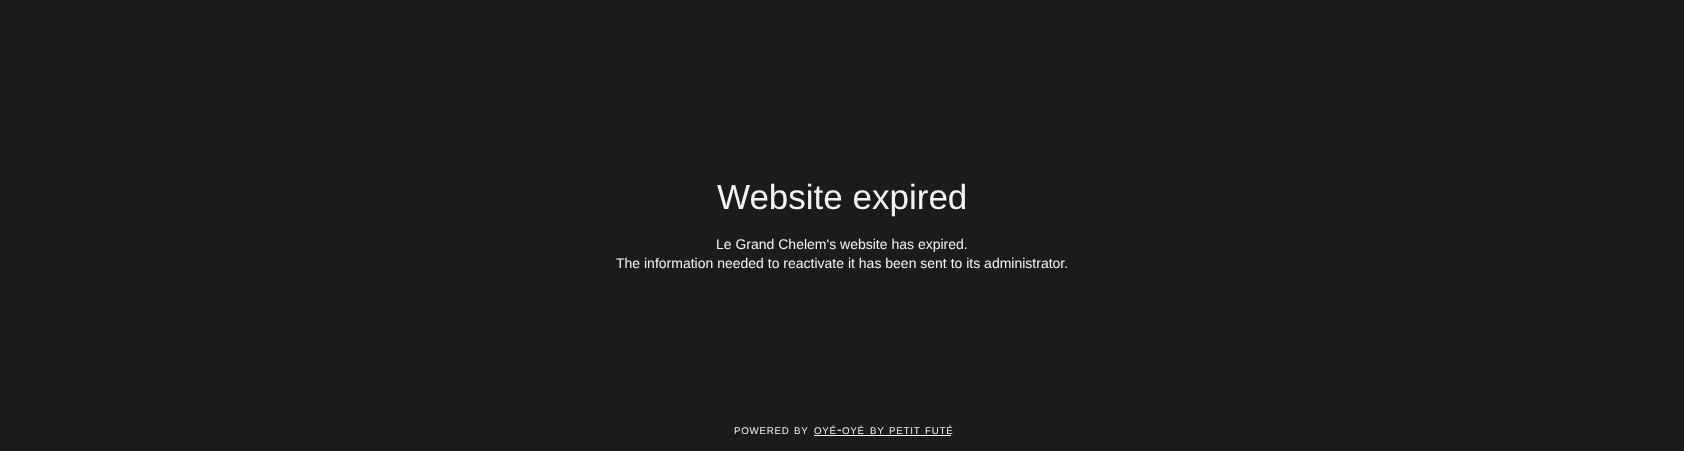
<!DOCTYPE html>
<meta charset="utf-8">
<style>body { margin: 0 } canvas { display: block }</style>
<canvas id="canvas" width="1684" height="451"></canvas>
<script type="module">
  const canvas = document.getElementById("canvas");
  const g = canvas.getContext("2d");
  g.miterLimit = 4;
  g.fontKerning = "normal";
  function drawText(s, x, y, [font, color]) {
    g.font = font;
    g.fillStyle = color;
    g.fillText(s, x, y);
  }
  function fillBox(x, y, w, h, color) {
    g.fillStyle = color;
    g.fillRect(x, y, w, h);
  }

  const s1 = ["35px Liberation Sans", "#F3F3F3"];
  const s2 = ["14px Liberation Sans", "#F3F3F3"];
  const s3 = ["9.75px Liberation Sans", "#F3F3F3"];

  fillBox(0, 0, 1684, 451, "#1B1B1E");
  drawText("Website expired", 717, 209, s1);
  drawText("Le Grand Chelem's website has expired.", 716, 249, s2);
  drawText("The information needed to reactivate it has been sent to its administrator.", 616, 268, s2);
  g.letterSpacing = "0.75px";
  drawText("POWERED", 734, 434, s3);
  drawText("BY", 794, 434, s3);
  drawText("OYÉ", 814, 434, s3);
  drawText("-", 837, 434, s2);
  drawText("OYÉ", 842, 434, s3);
  drawText("BY", 870, 434, s3);
  fillBox(814, 435, 137, 1, "#F3F3F3");
  drawText("PETIT", 889, 434, s3);
  drawText("FUTÉ", 925, 434, s3);
</script>
